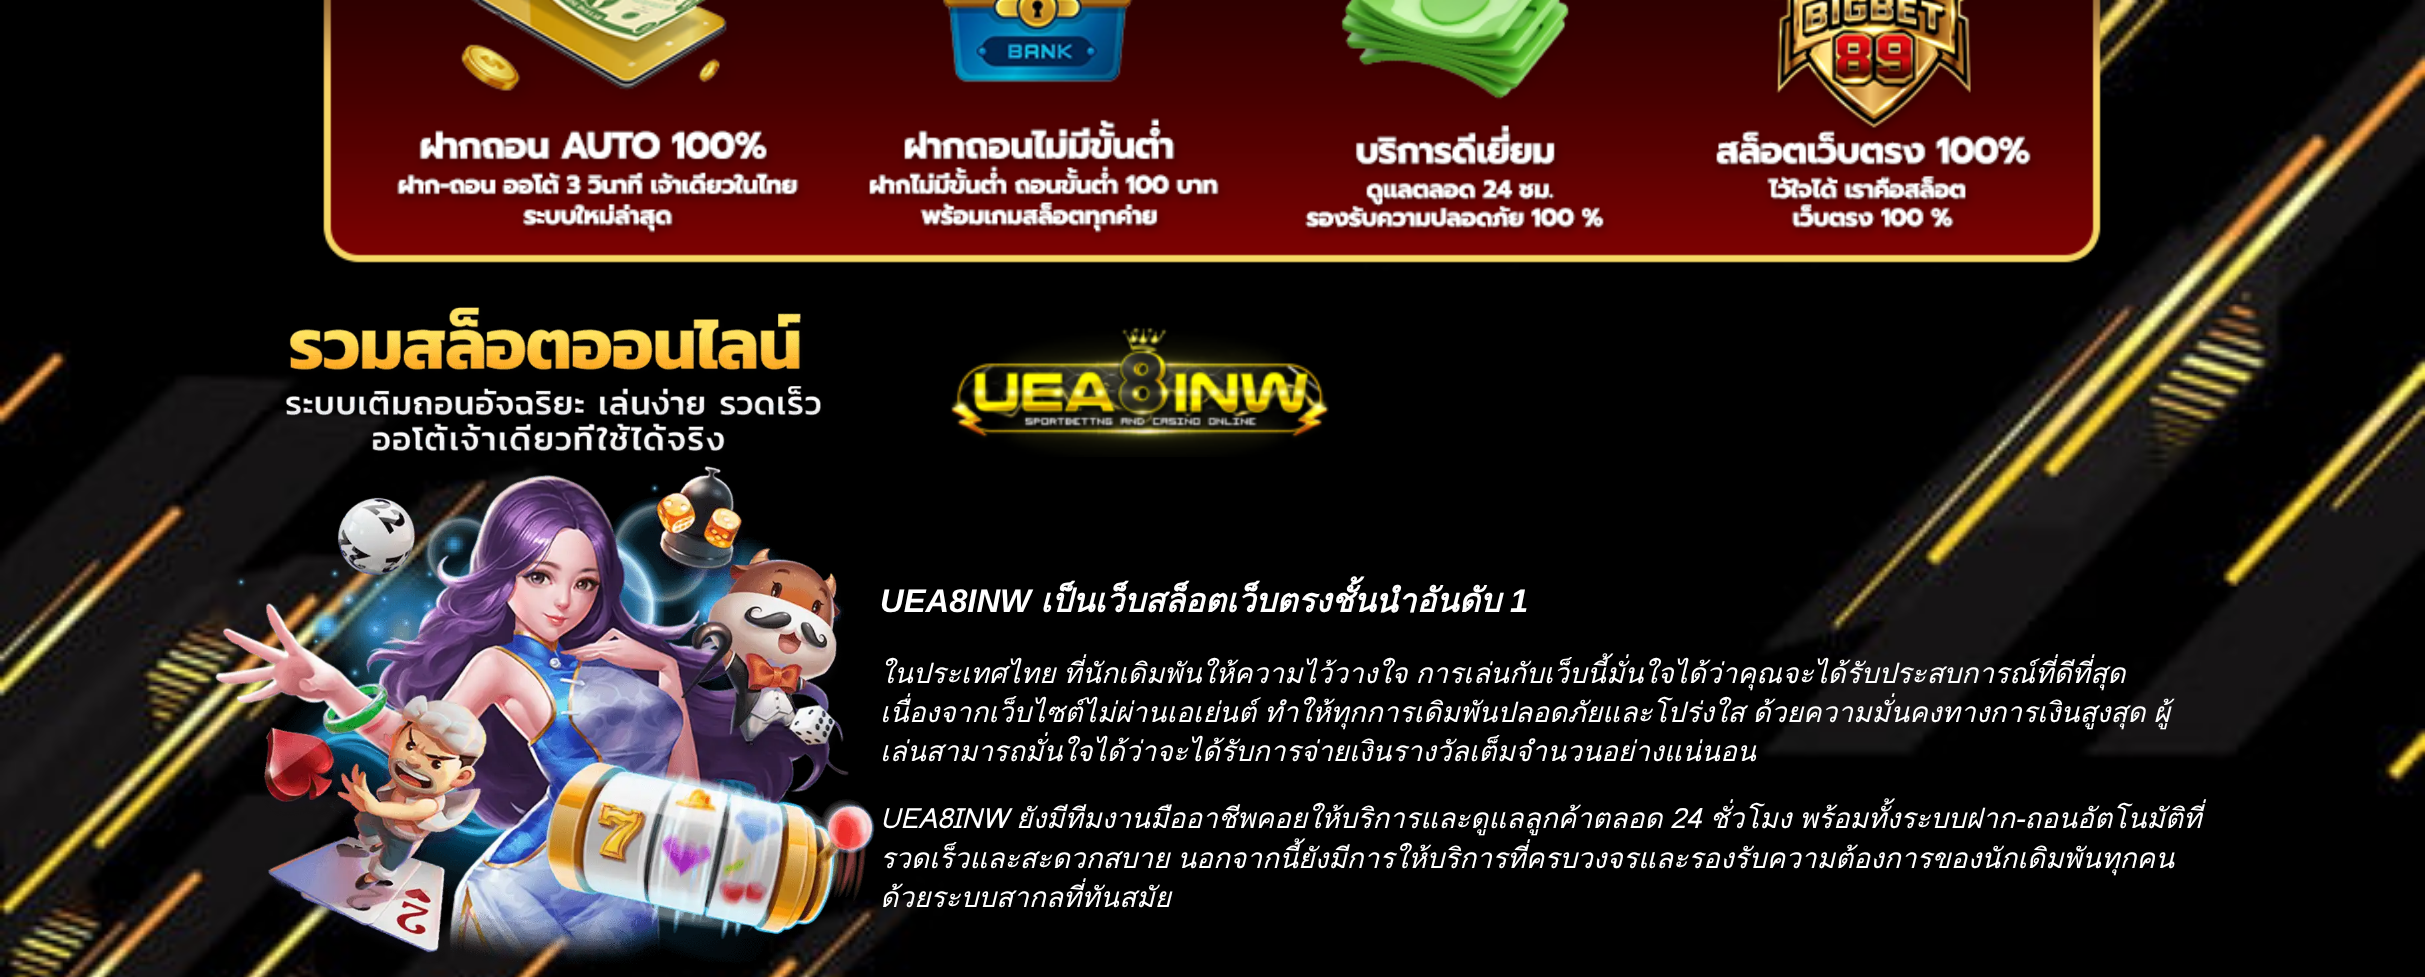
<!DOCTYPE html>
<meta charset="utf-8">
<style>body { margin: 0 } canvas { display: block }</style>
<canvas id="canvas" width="2425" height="977"></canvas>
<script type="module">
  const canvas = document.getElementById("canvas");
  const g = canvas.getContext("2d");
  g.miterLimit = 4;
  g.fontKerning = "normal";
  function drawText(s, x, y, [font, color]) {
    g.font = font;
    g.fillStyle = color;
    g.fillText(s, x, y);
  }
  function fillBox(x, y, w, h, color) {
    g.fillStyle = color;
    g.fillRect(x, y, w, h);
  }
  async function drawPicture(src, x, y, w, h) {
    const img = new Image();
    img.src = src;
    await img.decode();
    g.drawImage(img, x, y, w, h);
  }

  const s1 = ["italic bold 32.75px Liberation Sans", "#FFFFFF"];
  const s2 = ["italic bold 32.75px Loma", "#FFFFFF"];
  const s3 = ["italic 28px Loma", "#FFFFFF"];

  fillBox(0, 0, 2425, 977, "#FFFFFF");
  await drawPicture("pic1.png", 0, 0, 2425, 977);
  await drawPicture("pic2.png", 323, 0, 1778, 263);
  await drawPicture("pic3.png", 215, 307, 660, 657);
  await drawPicture("pic4.png", 950, 326, 379, 131);
  drawText("UEA8INW", 880, 612, s1);
  drawText("เป็นเว็บสล็อตเว็บตรงชั้นนำอันดับ", 1040, 612, s2);
  drawText("1", 1510, 612, s1);
  g.wordSpacing = "-1.5px";
  drawText("ในประเทศไทย ที่นักเดิมพันให้ความไว้วางใจ การเล่นกับเว็บนี้มั่นใจได้ว่าคุณจะได้รับประสบการณ์ที่ดีที่สุด", 880, 683, s3);
  drawText("เนื่องจากเว็บไซต์ไม่ผ่านเอเย่นต์ ทำให้ทุกการเดิมพันปลอดภัยและโปร่งใส ด้วยความมั่นคงทางการเงินสูงสุด ผู้", 880, 722, s3);
  g.wordSpacing = "0px";
  drawText("เล่นสามารถมั่นใจได้ว่าจะได้รับการจ่ายเงินรางวัลเต็มจำนวนอย่างแน่นอน", 880, 761, s3);
  g.wordSpacing = "-1.5px";
  drawText("UEA8INW ยังมีทีมงานมืออาชีพคอยให้บริการและดูแลลูกค้าตลอด 24 ชั่วโมง พร้อมทั้งระบบฝาก-ถอนอัตโนมัติที่", 880, 828, s3);
  g.wordSpacing = "-2px";
  drawText("รวดเร็วและสะดวกสบาย นอกจากนี้ยังมีการให้บริการที่ครบวงจรและรองรับความต้องการของนักเดิมพันทุกคน", 880, 868, s3);
  g.wordSpacing = "0px";
  drawText("ด้วยระบบสากลที่ทันสมัย", 880, 907, s3);
</script>
